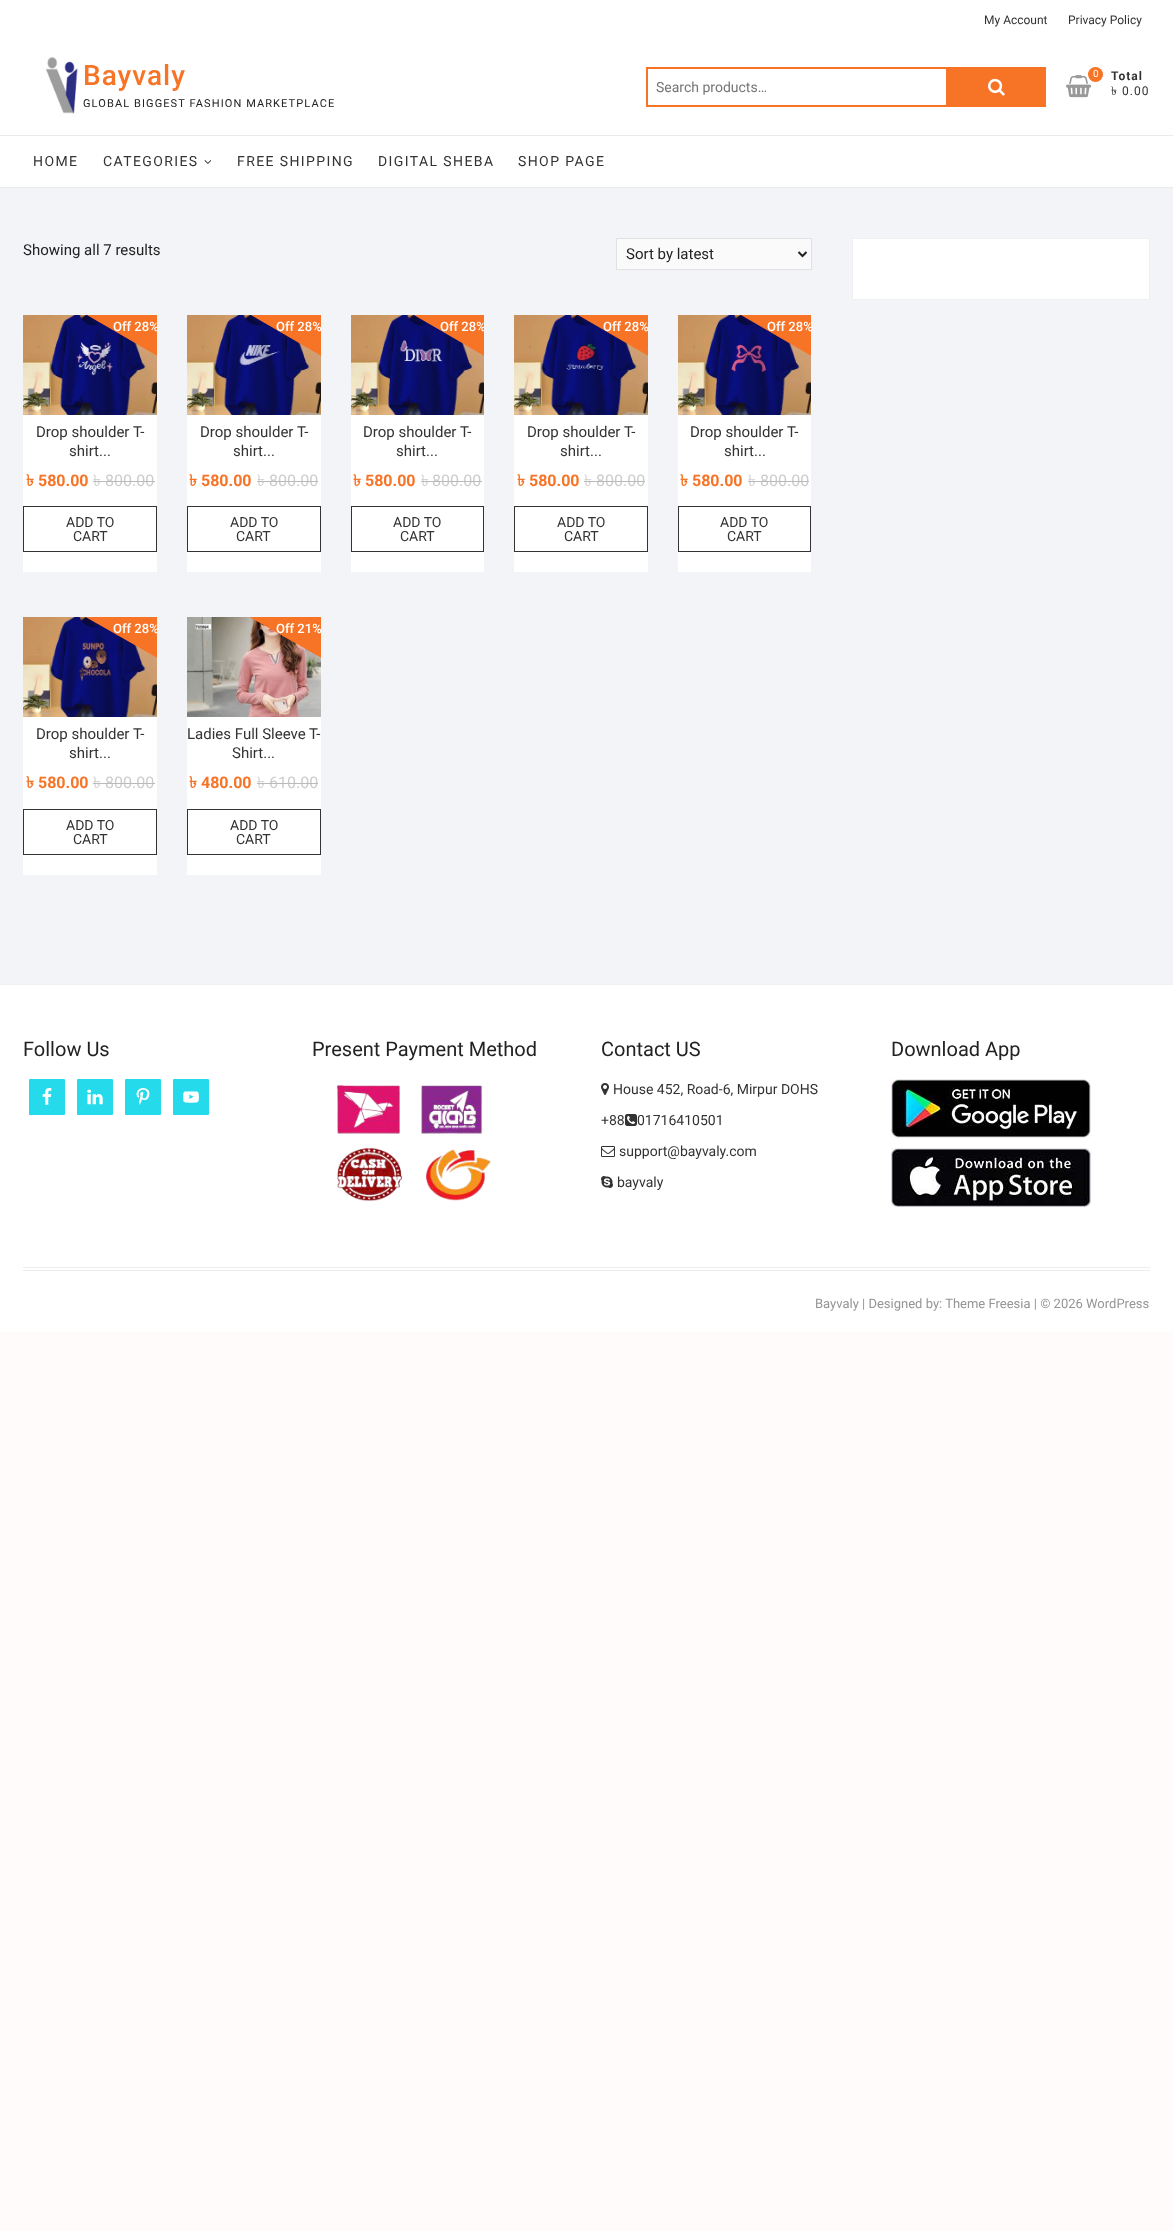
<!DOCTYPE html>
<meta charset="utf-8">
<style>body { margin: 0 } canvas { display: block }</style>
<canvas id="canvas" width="1173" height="2231"></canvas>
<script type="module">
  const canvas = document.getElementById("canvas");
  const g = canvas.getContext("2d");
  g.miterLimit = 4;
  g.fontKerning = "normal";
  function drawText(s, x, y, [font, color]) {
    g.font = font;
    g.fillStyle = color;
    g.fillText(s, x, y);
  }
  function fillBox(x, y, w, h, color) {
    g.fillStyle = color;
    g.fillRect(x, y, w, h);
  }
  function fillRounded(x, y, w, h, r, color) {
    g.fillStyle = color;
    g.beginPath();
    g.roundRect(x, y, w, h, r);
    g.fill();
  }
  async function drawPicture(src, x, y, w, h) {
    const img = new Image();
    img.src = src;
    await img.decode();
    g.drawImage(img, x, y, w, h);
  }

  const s1 = ["12px Roboto", "#333333"];
  const s2 = ["500 28px Roboto", "#F77426"];
  const s3 = ["11px Roboto", "#222222"];
  const s4 = ["14px Roboto", "#757575"];
  const s5 = ["10px Roboto", "#FFFFFF"];
  const s6 = ["bold 12px Roboto", "#333333"];
  const s7 = ["12px Lohit Bengali", "#333333"];
  const s8 = ["14px Roboto", "#333333"];
  const s9 = ["15px Roboto", "#222222"];
  const s10 = ["500 13px Roboto", "#FFFFFF"];
  const s11 = ["15px Roboto", "#333333"];
  const s12 = ["bold 16px Lohit Bengali", "#F77426"];
  const s13 = ["bold 16px Roboto", "#F77426"];
  const s14 = ["16px Lohit Bengali", "#CCCCCC"];
  const s15 = ["16px Roboto", "#CCCCCC"];
  const s16 = ["20px Roboto", "#222222"];
  const s17 = ["13px Roboto", "#969595"];

  fillBox(0, 0, 1173, 2231, "#FFFBFB");
  fillBox(0, 188, 1173, 796, "#F3F4F8");
  fillBox(0, 0, 1173, 187, "#FFFFFF");
  drawText("My Account", 984, 24, s1);
  drawText("Privacy Policy", 1068, 24, s1);
  await drawPicture("pic1.png", 45, 57, 33, 57);
  g.letterSpacing = "1px";
  drawText("Bayvaly", 83, 85, s2);
  g.letterSpacing = "1.1px";
  drawText("GLOBAL BIGGEST FASHION MARKETPLACE", 83, 107, s3);
  fillBox(646, 67, 300, 2, "#F77426");
  fillBox(646, 105, 300, 2, "#F77426");
  fillBox(646, 67, 2, 40, "#F77426");
  g.letterSpacing = "0px";
  drawText("Search products…", 656, 92, s4);
  fillBox(946, 67, 100, 40, "#F77426");
  await drawPicture("pic2.png", 988, 78, 17, 18);
  await drawPicture("pic3.png", 1066, 75, 26, 23);
  g.beginPath();
  g.arc(1095.5, 74.5, 7.5, 0, Math.PI * 2);
  g.fill();
  drawText("0", 1093, 77, s5);
  g.letterSpacing = "1px";
  drawText("Total", 1111, 80, s6);
  drawText("৳", 1111, 95, s7);
  drawText("0.00", 1122, 95, s1);
  fillBox(0, 135, 1173, 1, "#EBEBEB");
  fillBox(0, 187, 1173, 1, "#EBEBEB");
  g.letterSpacing = "1.4px";
  drawText("HOME", 33, 166, s8);
  drawText("CATEGORIES", 103, 166, s8);
  await drawPicture("pic4.png", 204, 160, 8, 4);
  drawText("FREE SHIPPING", 237, 166, s8);
  drawText("DIGITAL SHEBA", 378, 166, s8);
  drawText("SHOP PAGE", 518, 166, s8);
  g.letterSpacing = "0px";
  drawText("Showing all 7 results", 23, 255, s9);
  g.fillStyle = "#FAFAFA";
  g.beginPath();
  g.rect(616.5, 238.5, 195, 31);
  g.fill();
  g.strokeStyle = "#E1E1E1";
  g.stroke();
  g.beginPath();
  g.moveTo(798.5, 252);
  g.lineTo(802.5, 256);
  g.lineTo(806.5, 252);
  g.strokeStyle = "#222222";
  g.lineWidth = 2;
  g.stroke();
  drawText("Sort by latest", 626, 259, s9);
  fillBox(23, 415, 134, 157, "#FFFFFF");
  await drawPicture("pic5.png", 23, 315, 134, 100);
  g.save();
  g.beginPath();
  g.rect(23, 315, 134, 257);
  g.clip();
  g.fillStyle = "#F77426";
  g.beginPath();
  g.moveTo(68, 304);
  g.lineTo(108, 235);
  g.lineTo(199, 288);
  g.lineTo(159, 357);
  g.closePath();
  g.fill();
  drawText("Off 28%", 113, 331, s10);
  g.restore();
  drawText("Drop shoulder T-", 36, 437, s11);
  drawText("shirt...", 69, 456, s11);
  drawText("৳", 26, 486, s12);
  drawText("580.00", 38, 486, s13);
  drawText("৳", 93, 486, s14);
  fillBox(93, 481, 12, 1, "#BABABA");
  drawText("800.00", 105, 486, s15);
  fillBox(105, 481, 50, 1, "#BABABA");
  g.strokeStyle = "#333333";
  g.lineWidth = 1;
  g.strokeRect(23.5, 506.5, 133, 45);
  drawText("ADD TO", 66, 527, s8);
  drawText("CART", 73, 541, s8);
  fillBox(187, 415, 134, 157, "#FFFFFF");
  await drawPicture("pic6.png", 187, 315, 134, 100);
  g.save();
  g.beginPath();
  g.rect(187, 315, 134, 257);
  g.clip();
  g.fillStyle = "#F77426";
  g.beginPath();
  g.moveTo(232, 304);
  g.lineTo(272, 235);
  g.lineTo(363, 288);
  g.lineTo(323, 357);
  g.closePath();
  g.fill();
  g.restore();
  drawText("Off 28%", 276, 331, s10);
  drawText("Drop shoulder T-", 200, 437, s11);
  drawText("shirt...", 233, 456, s11);
  drawText("৳", 189, 486, s12);
  drawText("580.00", 201, 486, s13);
  drawText("৳", 257, 486, s14);
  drawText("800.00", 269, 486, s15);
  fillBox(257, 481, 12, 1, "#BABABA");
  fillBox(269, 481, 49, 1, "#BABABA");
  g.strokeRect(187.5, 506.5, 133, 45);
  drawText("ADD TO", 230, 527, s8);
  drawText("CART", 236, 541, s8);
  fillBox(351, 415, 133, 157, "#FFFFFF");
  await drawPicture("pic7.png", 351, 315, 133, 100);
  g.save();
  g.beginPath();
  g.rect(351, 315, 133, 257);
  g.clip();
  g.fillStyle = "#F77426";
  g.beginPath();
  g.moveTo(395, 304);
  g.lineTo(435, 235);
  g.lineTo(526, 288);
  g.lineTo(486, 357);
  g.closePath();
  g.fill();
  drawText("Off 28%", 440, 331, s10);
  g.restore();
  drawText("Drop shoulder T-", 363, 437, s11);
  drawText("shirt...", 396, 456, s11);
  drawText("৳", 353, 486, s12);
  drawText("580.00", 365, 486, s13);
  drawText("৳", 421, 486, s14);
  fillBox(421, 481, 11, 1, "#BABABA");
  drawText("800.00", 432, 486, s15);
  fillBox(432, 481, 50, 1, "#BABABA");
  g.strokeRect(351.5, 506.5, 132, 45);
  drawText("ADD TO", 393, 527, s8);
  drawText("CART", 400, 541, s8);
  fillBox(514, 415, 134, 157, "#FFFFFF");
  await drawPicture("pic8.png", 514, 315, 134, 100);
  g.save();
  g.beginPath();
  g.rect(514, 315, 134, 257);
  g.clip();
  g.fillStyle = "#F77426";
  g.beginPath();
  g.moveTo(559, 304);
  g.lineTo(599, 235);
  g.lineTo(690, 288);
  g.lineTo(650, 357);
  g.closePath();
  g.fill();
  g.restore();
  drawText("Off 28%", 603, 331, s10);
  drawText("Drop shoulder T-", 527, 437, s11);
  drawText("shirt...", 560, 456, s11);
  drawText("৳", 517, 486, s12);
  drawText("580.00", 529, 486, s13);
  drawText("৳", 584, 486, s14);
  drawText("800.00", 596, 486, s15);
  fillBox(584, 481, 12, 1, "#BABABA");
  fillBox(596, 481, 49, 1, "#BABABA");
  g.strokeRect(514.5, 506.5, 133, 45);
  drawText("ADD TO", 557, 527, s8);
  drawText("CART", 564, 541, s8);
  fillBox(678, 415, 133, 157, "#FFFFFF");
  await drawPicture("pic9.png", 678, 315, 133, 100);
  g.save();
  g.beginPath();
  g.rect(678, 315, 133, 257);
  g.clip();
  g.fillStyle = "#F77426";
  g.beginPath();
  g.moveTo(722, 304);
  g.lineTo(762, 235);
  g.lineTo(853, 288);
  g.lineTo(813, 357);
  g.closePath();
  g.fill();
  drawText("Off 28%", 767, 331, s10);
  g.restore();
  drawText("Drop shoulder T-", 690, 437, s11);
  drawText("shirt...", 724, 456, s11);
  drawText("৳", 680, 486, s12);
  drawText("580.00", 692, 486, s13);
  drawText("৳", 748, 486, s14);
  drawText("800.00", 760, 486, s15);
  fillBox(748, 481, 12, 1, "#BABABA");
  fillBox(760, 481, 49, 1, "#BABABA");
  g.strokeRect(678.5, 506.5, 132, 45);
  drawText("ADD TO", 720, 527, s8);
  drawText("CART", 727, 541, s8);
  fillBox(23, 717, 134, 158, "#FFFFFF");
  await drawPicture("pic10.png", 23, 617, 134, 100);
  g.save();
  g.beginPath();
  g.rect(23, 617, 134, 258);
  g.clip();
  g.fillStyle = "#F77426";
  g.beginPath();
  g.moveTo(68, 607);
  g.lineTo(108, 537);
  g.lineTo(199, 590);
  g.lineTo(159, 659);
  g.closePath();
  g.fill();
  drawText("Off 28%", 113, 633, s10);
  g.restore();
  drawText("Drop shoulder T-", 36, 739, s11);
  drawText("shirt...", 69, 758, s11);
  drawText("৳", 26, 788, s12);
  drawText("580.00", 38, 788, s13);
  drawText("৳", 93, 788, s14);
  fillBox(93, 783, 12, 1, "#BABABA");
  drawText("800.00", 105, 788, s15);
  fillBox(105, 783, 50, 1, "#BABABA");
  g.strokeRect(23.5, 809.5, 133, 45);
  drawText("ADD TO", 66, 830, s8);
  drawText("CART", 73, 844, s8);
  fillBox(187, 717, 134, 158, "#FFFFFF");
  await drawPicture("pic11.png", 187, 617, 134, 100);
  g.save();
  g.beginPath();
  g.rect(187, 617, 134, 258);
  g.clip();
  g.fillStyle = "#F77426";
  g.beginPath();
  g.moveTo(232, 607);
  g.lineTo(272, 537);
  g.lineTo(363, 590);
  g.lineTo(323, 659);
  g.closePath();
  g.fill();
  g.restore();
  drawText("Off 21%", 276, 633, s10);
  drawText("Ladies Full Sleeve T-", 187, 739, s11);
  drawText("Shirt...", 232, 758, s11);
  drawText("৳", 189, 788, s12);
  drawText("480.00", 201, 788, s13);
  drawText("৳", 257, 788, s14);
  drawText("610.00", 269, 788, s15);
  fillBox(257, 783, 12, 1, "#BABABA");
  fillBox(269, 783, 49, 1, "#BABABA");
  g.strokeRect(187.5, 809.5, 133, 45);
  drawText("ADD TO", 230, 830, s8);
  drawText("CART", 236, 844, s8);
  g.fillStyle = "#FFFFFF";
  g.beginPath();
  g.rect(852.5, 238.5, 297, 61);
  g.fill();
  g.strokeStyle = "#F0F0F0";
  g.stroke();
  fillBox(0, 985, 1173, 347, "#FFFFFF");
  fillBox(0, 984, 1173, 1, "#F2F2F2");
  drawText("Follow Us", 23, 1056, s16);
  fillRounded(29, 1079, 36, 36, 1, "#25DAEA");
  await drawPicture("pic12.png", 42, 1088, 10, 17);
  fillRounded(77, 1079, 36, 36, 1, "#25DAEA");
  await drawPicture("pic13.png", 87, 1089, 16, 16);
  fillRounded(125, 1079, 36, 36, 1, "#25DAEA");
  await drawPicture("pic14.png", 136, 1088, 14, 17);
  fillRounded(173, 1079, 36, 36, 1, "#25DAEA");
  await drawPicture("pic15.png", 183, 1091, 16, 12);
  drawText("Present Payment Method", 312, 1056, s16);
  await drawPicture("pic16.png", 336, 1084, 156, 118);
  drawText("Contact US", 601, 1056, s16);
  await drawPicture("pic17.png", 601, 1083, 8, 12);
  drawText("House 452, Road-6, Mirpur DOHS", 613, 1094, s8);
  drawText("+88", 601, 1125, s8);
  await drawPicture("pic18.png", 625, 1114, 12, 12);
  drawText("01716410501", 637, 1125, s8);
  await drawPicture("pic19.png", 601, 1146, 14, 11);
  drawText("support@bayvaly.com", 619, 1156, s8);
  await drawPicture("pic20.png", 601, 1176, 12, 12);
  drawText("bayvaly", 617, 1187, s8);
  drawText("Download App", 891, 1056, s16);
  await drawPicture("pic21.png", 891, 1079, 200, 59);
  await drawPicture("pic22.png", 891, 1148, 200, 59);
  fillBox(23, 1270, 1127, 1, "#EDEDED");
  fillBox(23, 1267, 1127, 1, "#EDEDED");
  drawText("Bayvaly | Designed by: Theme Freesia | © 2026 WordPress", 815, 1308, s17);
</script>
